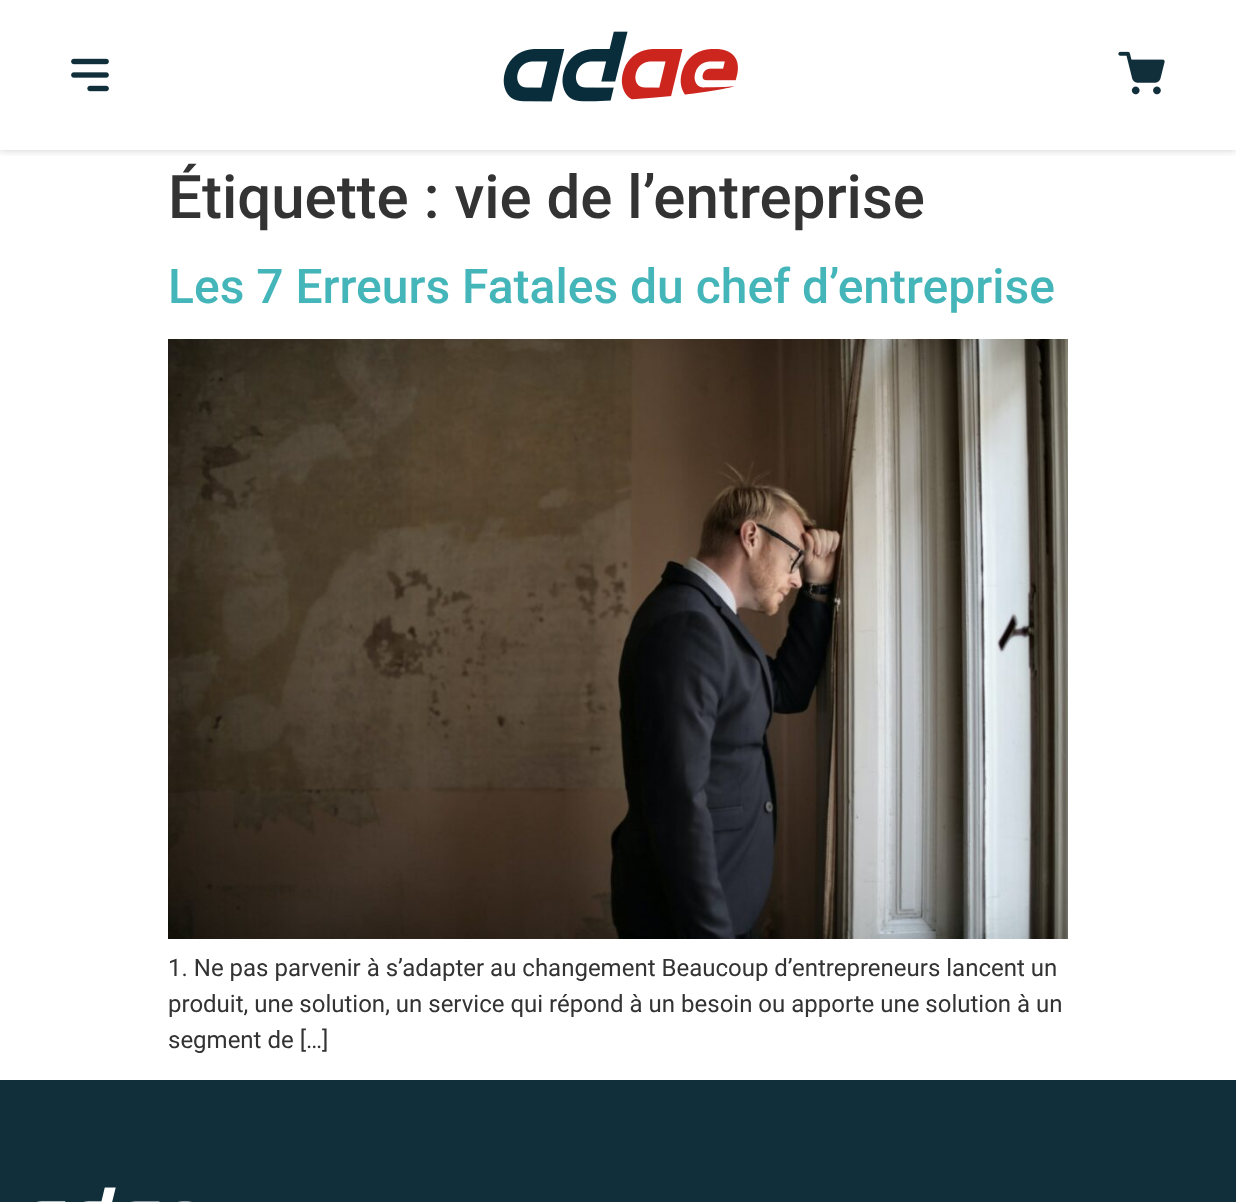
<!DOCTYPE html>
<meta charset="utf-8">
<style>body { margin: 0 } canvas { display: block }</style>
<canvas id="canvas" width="1236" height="1202"></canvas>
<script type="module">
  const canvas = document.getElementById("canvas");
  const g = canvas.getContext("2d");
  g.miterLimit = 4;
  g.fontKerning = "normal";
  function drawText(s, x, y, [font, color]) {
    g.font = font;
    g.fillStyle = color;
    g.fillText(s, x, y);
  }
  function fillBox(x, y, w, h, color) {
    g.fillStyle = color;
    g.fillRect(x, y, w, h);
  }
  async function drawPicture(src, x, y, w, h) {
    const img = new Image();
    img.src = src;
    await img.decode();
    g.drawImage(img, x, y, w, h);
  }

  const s1 = ["500 60px Roboto", "#333333"];
  const s2 = ["500 48px Roboto", "#44B5B9"];
  const s3 = ["24px Roboto", "#333333"];

  fillBox(0, 0, 1236, 1202, "#FFFFFF");
  g.save();
  g.beginPath();
  g.rect(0, 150, 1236, 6);
  g.clip();
  g.fillStyle = "rgba(49, 51, 56, 0.25)";
  g.filter = "blur(4px)";
  g.beginPath();
  g.rect(0, 0, 1236, 150);
  g.fill();
  g.filter = "none";
  g.restore();
  await drawPicture("pic1.png", 71, 58, 38, 34);
  await drawPicture("pic2.png", 503, 31, 235, 71);
  await drawPicture("pic3.png", 1118, 51, 47, 44);
  drawText("Étiquette : vie de l’entreprise", 168, 218, s1);
  drawText("Les 7 Erreurs Fatales du chef d’entreprise", 168, 303, s2);
  await drawPicture("pic4.png", 168, 339, 900, 600);
  drawText("1. Ne pas parvenir à s’adapter au changement Beaucoup d’entrepreneurs lancent un", 168, 976, s3);
  drawText("produit, une solution, un service qui répond à un besoin ou apporte une solution à un", 168, 1012, s3);
  drawText("segment de […]", 168, 1048, s3);
  fillBox(0, 1080, 1236, 122, "#102F3B");
  await drawPicture("pic5.png", 37, 1187, 155, 15);
</script>
